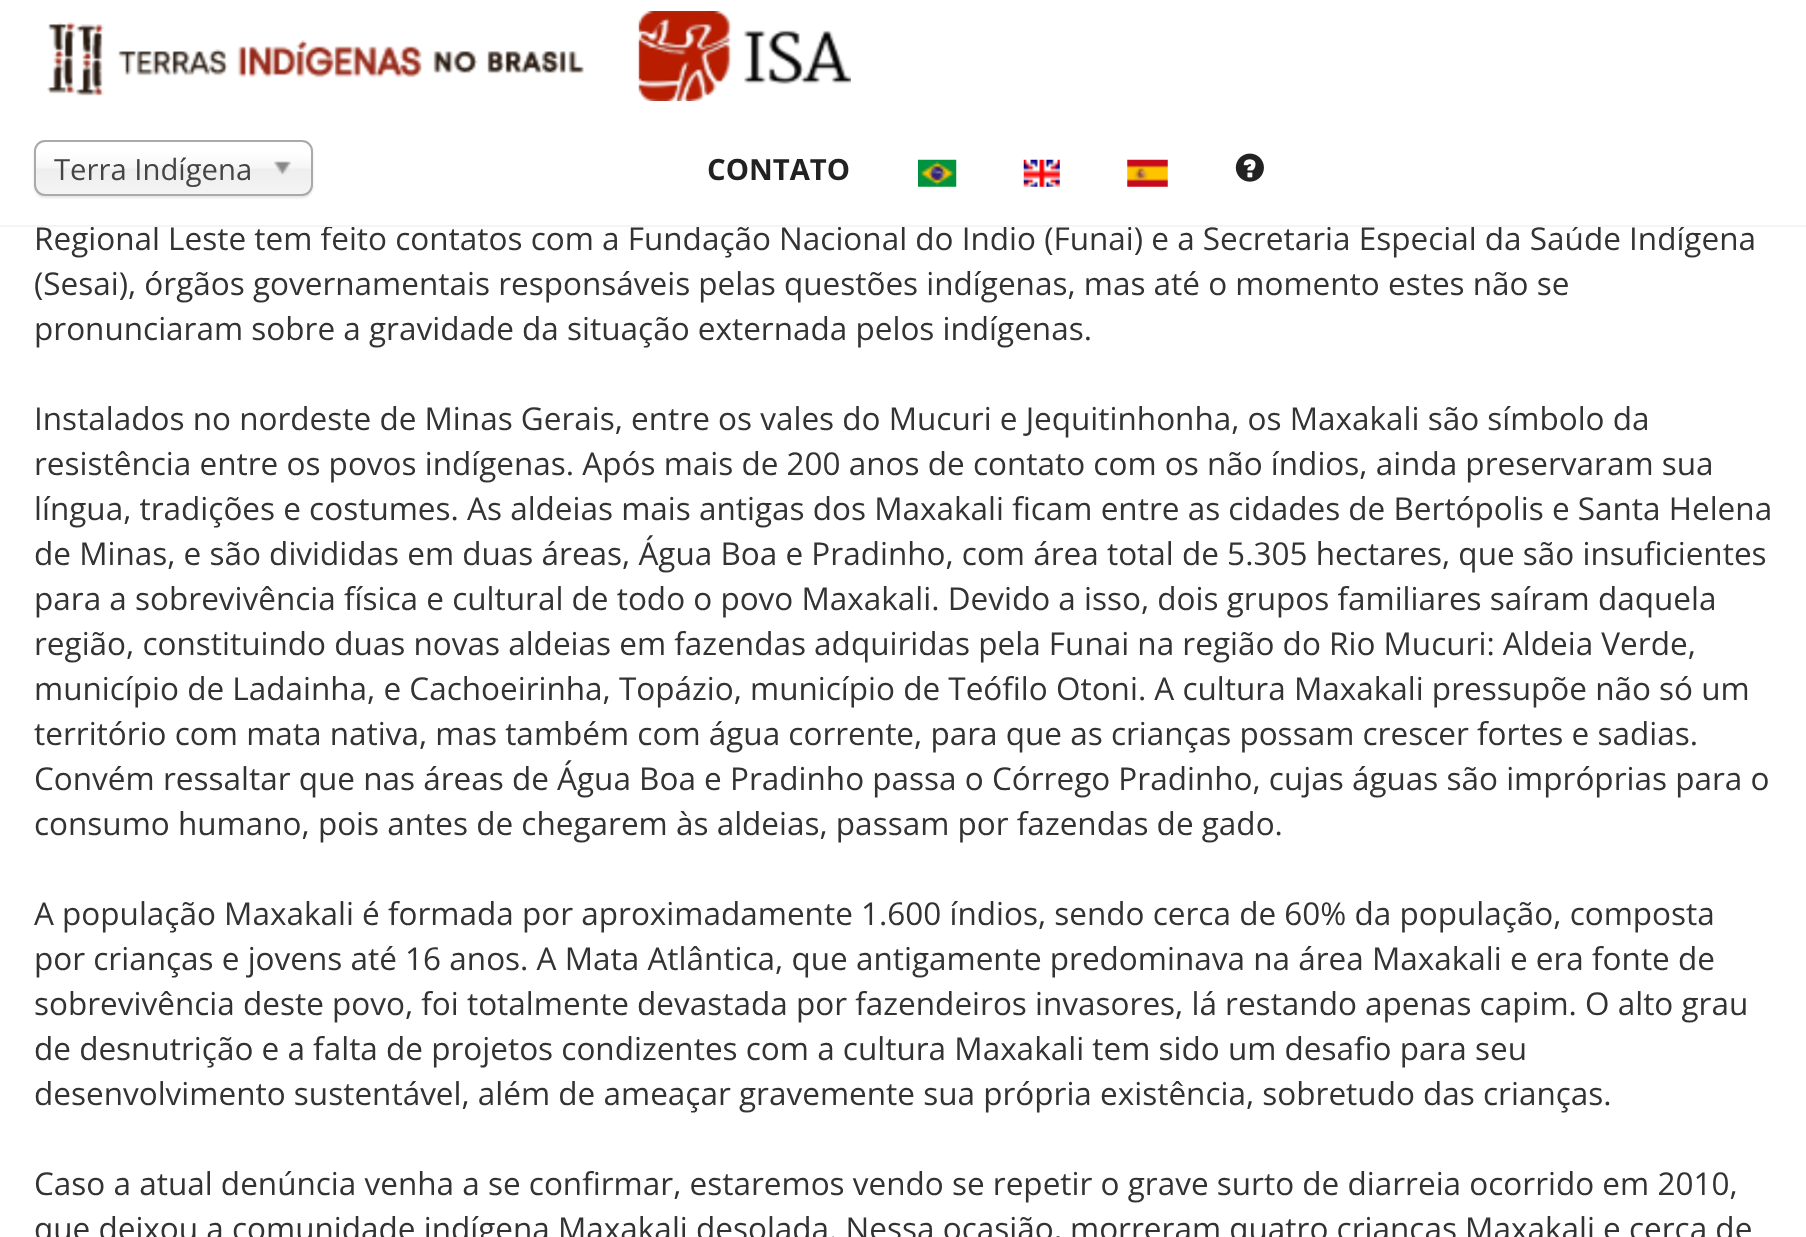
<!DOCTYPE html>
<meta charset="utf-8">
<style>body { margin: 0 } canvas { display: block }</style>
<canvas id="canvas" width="1806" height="1237"></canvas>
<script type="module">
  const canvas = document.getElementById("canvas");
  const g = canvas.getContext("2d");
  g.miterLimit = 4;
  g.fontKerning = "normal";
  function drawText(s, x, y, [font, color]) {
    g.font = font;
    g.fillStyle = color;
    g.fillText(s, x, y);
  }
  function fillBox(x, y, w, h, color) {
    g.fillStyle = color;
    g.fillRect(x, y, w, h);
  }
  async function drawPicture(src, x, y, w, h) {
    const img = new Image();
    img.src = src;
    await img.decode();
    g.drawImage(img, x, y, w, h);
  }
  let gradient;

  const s1 = ["31.5px Open Sans", "#333333"];
  const s2 = ["29.25px Open Sans", "#444444"];
  const s3 = ["bold 29.25px Open Sans", "#222222"];

  fillBox(0, 0, 1806, 1237, "#FFFFFF");
  drawText("Regional Leste tem feito contatos com a Fundação Nacional do Índio (Funai) e a Secretaria Especial da Saúde Indígena", 34, 250, s1);
  fillBox(964, 220, 7, 5, "#FFFFFF");
  fillBox(0, 225, 1806, 2, "#F4F4F4");
  await drawPicture("pic1.png", 47, 22, 537, 74);
  await drawPicture("pic2.png", 638, 11, 213, 90);
  g.fillStyle = "rgba(0, 0, 0, 0.1)";
  g.filter = "blur(1px)";
  g.beginPath();
  g.roundRect(34, 142, 279, 56, 11);
  g.fill();
  g.filter = "none";
  gradient = g.createLinearGradient(173, 142, 173, 194);
  gradient.addColorStop(0.2, "#FFFFFF");
  gradient.addColorStop(0.5, "#F6F6F6");
  gradient.addColorStop(0.52, "#EEEEEE");
  gradient.addColorStop(1, "#F4F4F4");
  g.fillStyle = gradient;
  g.beginPath();
  g.roundRect(36, 142, 275, 52, 9);
  g.fill();
  g.beginPath();
  g.roundRect(35, 141, 277, 54, 10);
  g.strokeStyle = "#AAAAAA";
  g.lineWidth = 2;
  g.stroke();
  drawText("Terra Indígena", 54, 180, s2);
  await drawPicture("pic3.png", 274, 161, 17, 14);
  drawText("CONTATO", 707, 180, s3);
  await drawPicture("pic4.png", 918, 159, 39, 28);
  await drawPicture("pic5.png", 1023, 159, 37, 28);
  await drawPicture("pic6.png", 1127, 159, 41, 28);
  await drawPicture("pic7.png", 1235, 153, 29, 29);
  drawText("(Sesai), órgãos governamentais responsáveis pelas questões indígenas, mas até o momento estes não se", 34, 295, s1);
  drawText("pronunciaram sobre a gravidade da situação externada pelos indígenas.", 34, 340, s1);
  drawText("Instalados no nordeste de Minas Gerais, entre os vales do Mucuri e Jequitinhonha, os Maxakali são símbolo da", 34, 430, s1);
  drawText("resistência entre os povos indígenas. Após mais de 200 anos de contato com os não índios, ainda preservaram sua", 34, 475, s1);
  drawText("língua, tradições e costumes. As aldeias mais antigas dos Maxakali ficam entre as cidades de Bertópolis e Santa Helena", 34, 520, s1);
  drawText("de Minas, e são divididas em duas áreas, Água Boa e Pradinho, com área total de 5.305 hectares, que são insuficientes", 34, 565, s1);
  drawText("para a sobrevivência física e cultural de todo o povo Maxakali. Devido a isso, dois grupos familiares saíram daquela", 34, 610, s1);
  drawText("região, constituindo duas novas aldeias em fazendas adquiridas pela Funai na região do Rio Mucuri: Aldeia Verde,", 34, 655, s1);
  drawText("município de Ladainha, e Cachoeirinha, Topázio, município de Teófilo Otoni. A cultura Maxakali pressupõe não só um", 34, 700, s1);
  drawText("território com mata nativa, mas também com água corrente, para que as crianças possam crescer fortes e sadias.", 34, 745, s1);
  drawText("Convém ressaltar que nas áreas de Água Boa e Pradinho passa o Córrego Pradinho, cujas águas são impróprias para o", 34, 790, s1);
  drawText("consumo humano, pois antes de chegarem às aldeias, passam por fazendas de gado.", 34, 835, s1);
  drawText("A população Maxakali é formada por aproximadamente 1.600 índios, sendo cerca de 60% da população, composta", 34, 925, s1);
  drawText("por crianças e jovens até 16 anos. A Mata Atlântica, que antigamente predominava na área Maxakali e era fonte de", 34, 970, s1);
  drawText("sobrevivência deste povo, foi totalmente devastada por fazendeiros invasores, lá restando apenas capim. O alto grau", 34, 1015, s1);
  drawText("de desnutrição e a falta de projetos condizentes com a cultura Maxakali tem sido um desafio para seu", 34, 1060, s1);
  drawText("desenvolvimento sustentável, além de ameaçar gravemente sua própria existência, sobretudo das crianças.", 34, 1105, s1);
  drawText("Caso a atual denúncia venha a se confirmar, estaremos vendo se repetir o grave surto de diarreia ocorrido em 2010,", 34, 1195, s1);
  drawText("que deixou a comunidade indígena Maxakali desolada. Nessa ocasião, morreram quatro crianças Maxakali e cerca de", 34, 1240, s1);
</script>
